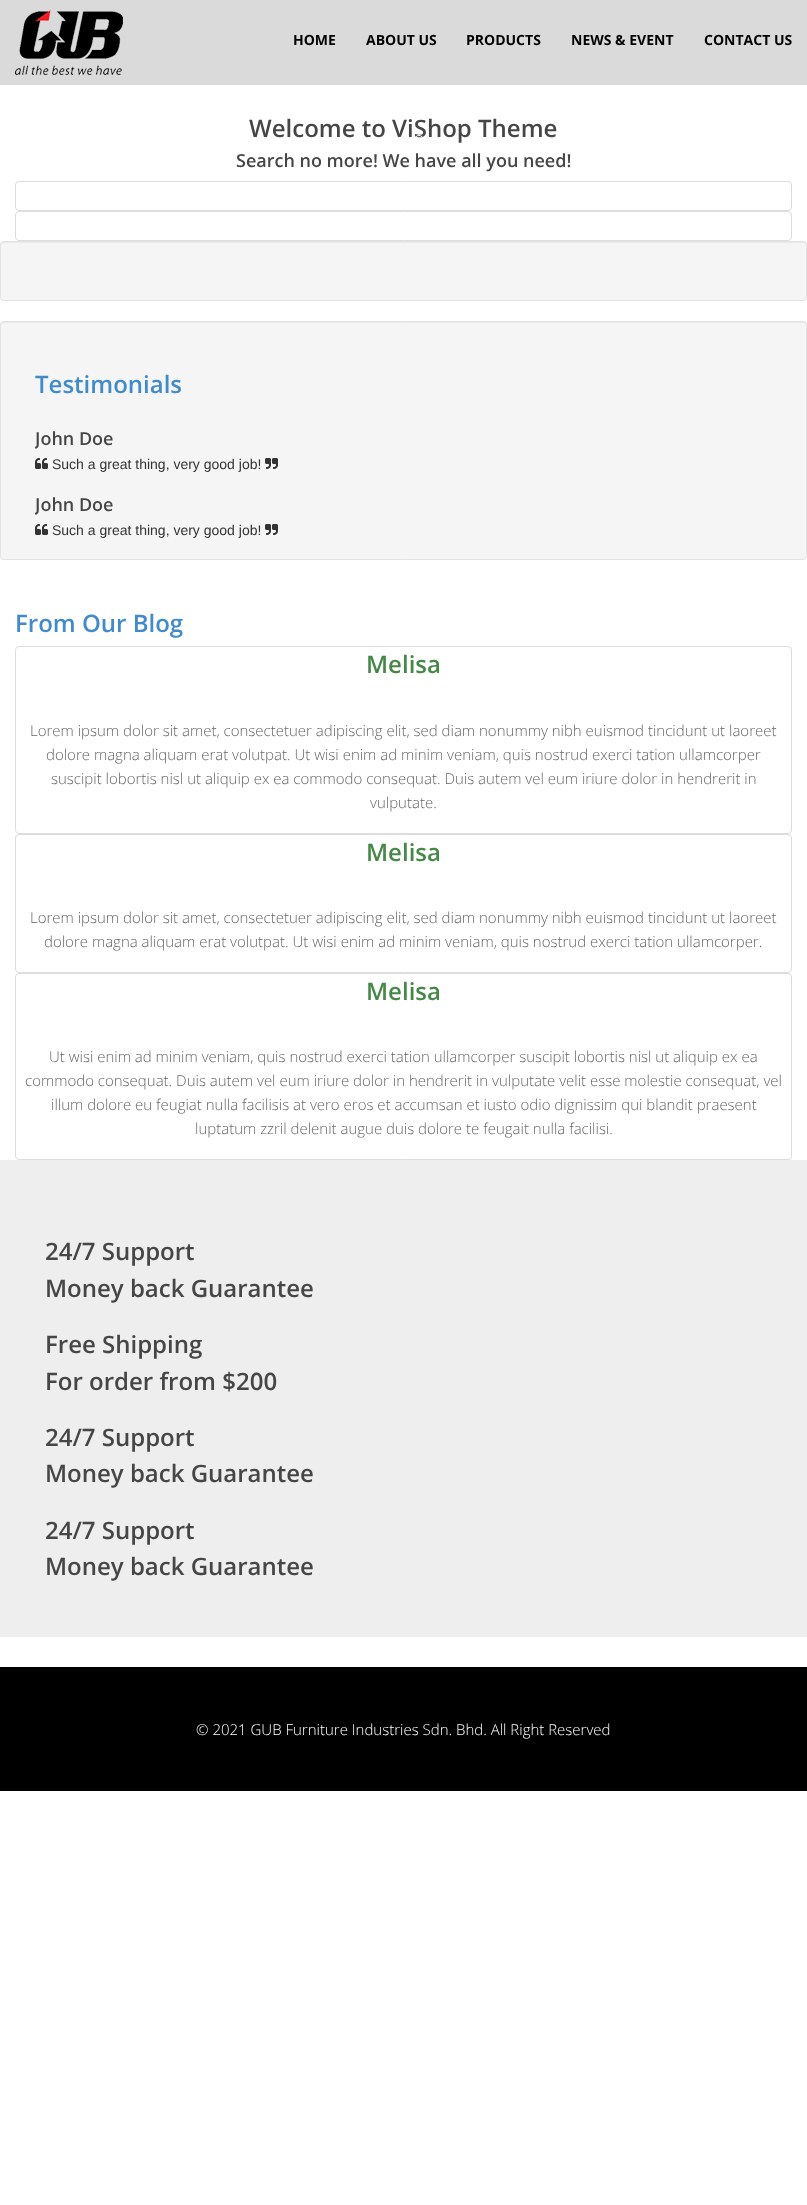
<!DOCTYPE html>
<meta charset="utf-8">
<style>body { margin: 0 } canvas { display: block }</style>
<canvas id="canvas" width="807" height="2205"></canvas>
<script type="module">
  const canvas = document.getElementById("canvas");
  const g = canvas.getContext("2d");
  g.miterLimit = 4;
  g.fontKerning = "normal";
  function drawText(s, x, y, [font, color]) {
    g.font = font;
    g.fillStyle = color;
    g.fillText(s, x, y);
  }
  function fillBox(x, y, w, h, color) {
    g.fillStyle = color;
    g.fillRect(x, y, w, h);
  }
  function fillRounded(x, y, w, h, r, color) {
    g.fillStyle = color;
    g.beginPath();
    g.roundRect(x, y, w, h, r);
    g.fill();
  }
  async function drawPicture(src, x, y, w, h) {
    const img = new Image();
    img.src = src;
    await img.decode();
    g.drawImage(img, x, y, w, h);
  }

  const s1 = ["bold 14px Open Sans", "#000000"];
  const s2 = ["600 24px Open Sans", "#464646"];
  const s3 = ["600 18px Open Sans", "#464646"];
  const s4 = ["600 24px Open Sans", "#428BCA"];
  const s5 = ["14px Liberation Sans", "#333333"];
  const s6 = ["600 24px Open Sans", "#468847"];
  const s7 = ["300 15px Open Sans", "#666666"];
  const s8 = ["300 15px Open Sans", "#FFFFFF"];

  fillBox(0, 0, 807, 2205, "#FFFFFF");
  fillBox(0, 0, 807, 85, "#DADADA");
  await drawPicture("pic1.png", 15, 10, 108, 65);
  drawText("HOME", 293, 45, s1);
  drawText("ABOUT US", 366, 45, s1);
  drawText("PRODUCTS", 466, 45, s1);
  drawText("NEWS & EVENT", 571, 45, s1);
  drawText("CONTACT US", 704, 45, s1);
  drawText("Welcome to ViShop Theme", 249, 137, s2);
  drawText("Search no more! We have all you need!", 236, 167, s3);
  g.fillStyle = "#FFFFFF";
  g.beginPath();
  g.arc(388, 140, 5.5, 0, Math.PI * 2);
  g.fill();
  g.strokeStyle = "#FFFFFF";
  g.stroke();
  g.beginPath();
  g.arc(404, 140, 4.5, 0, Math.PI * 2);
  g.stroke();
  g.beginPath();
  g.arc(419, 140, 4.5, 0, Math.PI * 2);
  g.stroke();
  g.beginPath();
  g.roundRect(15.5, 181.5, 776, 29, 3.5);
  g.strokeStyle = "#DDDDDD";
  g.stroke();
  g.beginPath();
  g.roundRect(15.5, 211.5, 776, 29, 3.5);
  g.stroke();
  fillRounded(0, 241, 807, 60, 4, "#F5F5F5");
  g.fillStyle = "#E9E9E9";
  g.beginPath();
  g.moveTo(4, 243);
  g.lineTo(803, 243);
  g.bezierCurveTo(805, 243, 806, 244, 806, 246);
  g.bezierCurveTo(806, 244, 805, 242, 803, 242);
  g.lineTo(4, 242);
  g.bezierCurveTo(2, 242, 1, 244, 1, 246);
  g.bezierCurveTo(1, 244, 2, 243, 4, 243);
  g.closePath();
  g.fill();
  g.beginPath();
  g.roundRect(0.5, 241.5, 806, 59, 3.5);
  g.strokeStyle = "#E3E3E3";
  g.stroke();
  fillRounded(0, 321, 807, 239, 4, "#F5F5F5");
  g.fillStyle = "#E9E9E9";
  g.beginPath();
  g.moveTo(4, 323);
  g.lineTo(803, 323);
  g.bezierCurveTo(805, 323, 806, 324, 806, 326);
  g.bezierCurveTo(806, 324, 805, 322, 803, 322);
  g.lineTo(4, 322);
  g.bezierCurveTo(2, 322, 1, 324, 1, 326);
  g.bezierCurveTo(1, 324, 2, 323, 4, 323);
  g.closePath();
  g.fill();
  g.beginPath();
  g.roundRect(0.5, 321.5, 806, 238, 3.5);
  g.stroke();
  drawText("Testimonials", 35, 393, s4);
  g.save();
  g.beginPath();
  g.rect(35, 429, 737, 45);
  g.clip();
  drawText("John Doe", 35, 445, s3);
  g.restore();
  await drawPicture("pic2.png", 35, 458, 13, 11);
  drawText("Such a great thing, very good job!", 52, 469, s5);
  await drawPicture("pic3.png", 265, 458, 13, 11);
  g.save();
  g.beginPath();
  g.rect(35, 495, 737, 45);
  g.clip();
  drawText("John Doe", 35, 511, s3);
  g.restore();
  await drawPicture("pic2.png", 35, 524, 13, 11);
  drawText("Such a great thing, very good job!", 52, 535, s5);
  await drawPicture("pic3.png", 265, 524, 13, 11);
  drawText("From Our Blog", 15, 632, s4);
  g.beginPath();
  g.roundRect(15.5, 646.5, 776, 187, 3.5);
  g.strokeStyle = "#DDDDDD";
  g.stroke();
  drawText("Melisa", 366, 673, s6);
  drawText("Lorem ipsum dolor sit amet, consectetuer adipiscing elit, sed diam nonummy nibh euismod tincidunt ut laoreet", 30, 736, s7);
  drawText("dolore magna aliquam erat volutpat. Ut wisi enim ad minim veniam, quis nostrud exerci tation ullamcorper", 46, 760, s7);
  drawText("suscipit lobortis nisl ut aliquip ex ea commodo consequat. Duis autem vel eum iriure dolor in hendrerit in", 51, 784, s7);
  drawText("vulputate.", 370, 808, s7);
  g.beginPath();
  g.roundRect(15.5, 834.5, 776, 138, 3.5);
  g.stroke();
  drawText("Melisa", 366, 861, s6);
  drawText("Lorem ipsum dolor sit amet, consectetuer adipiscing elit, sed diam nonummy nibh euismod tincidunt ut laoreet", 30, 923, s7);
  drawText("dolore magna aliquam erat volutpat. Ut wisi enim ad minim veniam, quis nostrud exerci tation ullamcorper.", 44, 947, s7);
  g.beginPath();
  g.roundRect(15.5, 973.5, 776, 186, 3.5);
  g.stroke();
  drawText("Melisa", 366, 1000, s6);
  drawText("Ut wisi enim ad minim veniam, quis nostrud exerci tation ullamcorper suscipit lobortis nisl ut aliquip ex ea", 49, 1062, s7);
  drawText("commodo consequat. Duis autem vel eum iriure dolor in hendrerit in vulputate velit esse molestie consequat, vel", 25, 1086, s7);
  drawText("illum dolore eu feugiat nulla facilisis at vero eros et accumsan et iusto odio dignissim qui blandit praesent", 51, 1110, s7);
  drawText("luptatum zzril delenit augue duis dolore te feugait nulla facilisi.", 195, 1134, s7);
  fillBox(0, 1160, 807, 477, "#EEEEEE");
  drawText("24/7 Support", 45, 1260, s2);
  drawText("Money back Guarantee", 45, 1297, s2);
  drawText("Free Shipping", 45, 1353, s2);
  drawText("For order from $200", 45, 1390, s2);
  drawText("24/7 Support", 45, 1446, s2);
  drawText("Money back Guarantee", 45, 1482, s2);
  drawText("24/7 Support", 45, 1539, s2);
  drawText("Money back Guarantee", 45, 1575, s2);
  fillBox(0, 1667, 807, 124, "#000000");
  drawText("© 2021 GUB Furniture Industries Sdn. Bhd. All Right Reserved", 196, 1735, s8);
</script>
